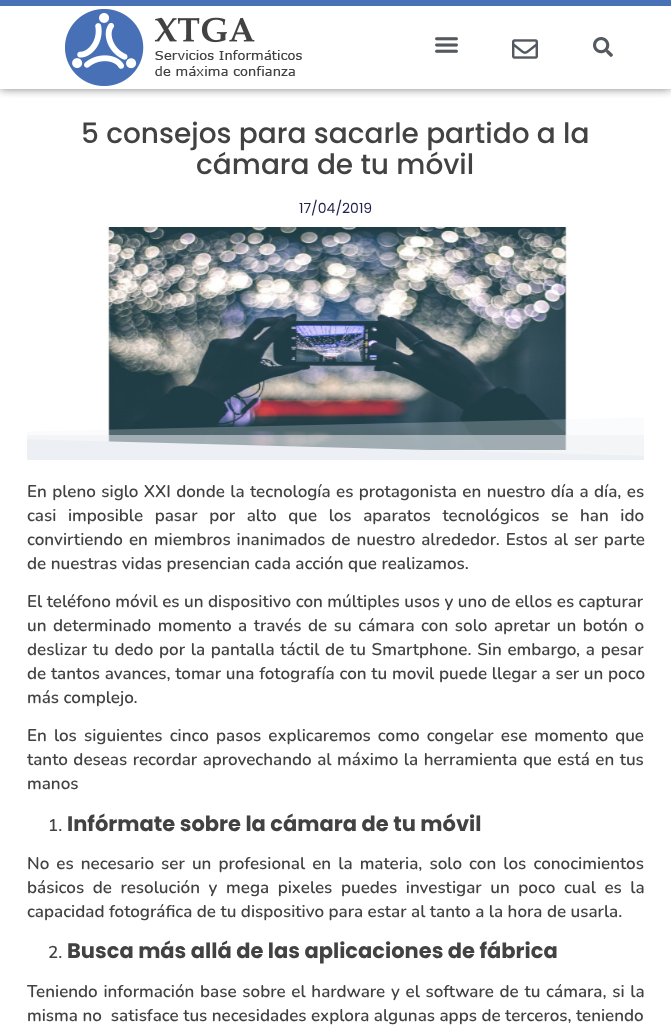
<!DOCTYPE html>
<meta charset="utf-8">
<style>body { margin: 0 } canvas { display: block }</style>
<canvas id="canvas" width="671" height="1031"></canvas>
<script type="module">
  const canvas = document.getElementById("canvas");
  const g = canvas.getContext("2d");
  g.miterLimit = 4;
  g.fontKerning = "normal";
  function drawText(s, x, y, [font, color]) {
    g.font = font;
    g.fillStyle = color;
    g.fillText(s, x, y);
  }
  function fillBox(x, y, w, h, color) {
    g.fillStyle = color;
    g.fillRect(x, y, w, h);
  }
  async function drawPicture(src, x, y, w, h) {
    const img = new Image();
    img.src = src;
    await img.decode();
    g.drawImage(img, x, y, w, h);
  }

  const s1 = ["500 28px Poppins", "#424242"];
  const s2 = ["14px Poppins", "#1C244B"];
  const s3 = ["600 17px Nunito", "#424242"];
  const s4 = ["bold 21px Poppins", "#424242"];

  fillBox(0, 0, 671, 1031, "#FFFFFF");
  g.save();
  g.beginPath();
  g.rect(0, 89, 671, 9);
  g.clip();
  g.fillStyle = "rgba(0, 0, 0, 0.5)";
  g.filter = "blur(5px)";
  g.beginPath();
  g.rect(0, 0, 671, 89);
  g.fill();
  g.filter = "none";
  g.restore();
  fillBox(0, 0, 671, 6, "#4971B7");
  await drawPicture("pic1.png", 65, 9, 237, 77);
  await drawPicture("pic2.png", 435, 37, 23, 16);
  await drawPicture("pic3.png", 512, 39, 26, 20);
  await drawPicture("pic4.png", 593, 37, 20, 20);
  drawText("5 consejos para sacarle partido a la", 81, 143, s1);
  drawText("cámara de tu móvil", 196, 174, s1);
  drawText("17/04/2019", 299, 213, s2);
  await drawPicture("pic5.png", 107, 227, 460, 223);
  g.save();
  g.beginPath();
  g.rect(27, 414, 617, 47);
  g.clip();
  g.fillStyle = "#EDEFF4";
  g.beginPath();
  g.moveTo(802, 460);
  g.lineTo(-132, 460);
  g.lineTo(-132, 435);
  g.closePath();
  g.fill();
  g.restore();
  fillBox(27, 435, 617, 21, "rgba(237, 239, 244, 0.5)");
  g.save();
  g.beginPath();
  g.rect(27, 414, 617, 47);
  g.clip();
  g.fillStyle = "rgba(237, 239, 244, 0.25)";
  g.beginPath();
  g.moveTo(-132, 460);
  g.lineTo(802, 460);
  g.lineTo(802, 414);
  g.lineTo(-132, 435);
  g.closePath();
  g.fill();
  g.restore();
  g.wordSpacing = "0.9px";
  drawText("En pleno siglo XXI donde la tecnología es protagonista en nuestro día a día, es", 27, 497, s3);
  g.wordSpacing = "7.1px";
  drawText("casi imposible pasar por alto que los aparatos tecnológicos se han ido", 27, 521, s3);
  g.wordSpacing = "1.5px";
  drawText("convirtiendo en miembros inanimados de nuestro alrededor. Estos al ser parte", 27, 545, s3);
  g.wordSpacing = "0px";
  drawText("de nuestras vidas presencian cada acción que realizamos.", 27, 569, s3);
  drawText("El teléfono móvil es un dispositivo con múltiples usos y uno de ellos es capturar", 27, 607, s3);
  g.wordSpacing = "2.1px";
  drawText("un determinado momento a través de su cámara con solo apretar un botón o", 27, 631, s3);
  g.wordSpacing = "1.25px";
  drawText("deslizar tu dedo por la pantalla táctil de tu Smartphone. Sin embargo, a pesar", 27, 655, s3);
  g.wordSpacing = "0.25px";
  drawText("de tantos avances, tomar una fotografía con tu movil puede llegar a ser un poco", 27, 679, s3);
  g.wordSpacing = "0px";
  drawText("más complejo.", 27, 703, s3);
  g.wordSpacing = "2.6px";
  drawText("En los siguientes cinco pasos explicaremos como congelar ese momento que", 27, 741, s3);
  g.wordSpacing = "1px";
  drawText("tanto deseas recordar aprovechando al máximo la herramienta que está en tus", 27, 765, s3);
  g.wordSpacing = "0px";
  drawText("manos", 27, 789, s3);
  drawText("1.", 48, 831, s3);
  drawText("Infórmate sobre la cámara de tu móvil", 67, 831, s4);
  g.wordSpacing = "2.6px";
  drawText("No es necesario ser un profesional en la materia, solo con los conocimientos", 27, 869, s3);
  g.wordSpacing = "4.1px";
  drawText("básicos de resolución y mega pixeles puedes investigar un poco cual es la", 27, 893, s3);
  g.wordSpacing = "0px";
  drawText("capacidad fotográfica de tu dispositivo para estar al tanto a la hora de usarla.", 27, 917, s3);
  drawText("2.", 48, 958, s3);
  drawText("Busca más allá de las aplicaciones de fábrica", 67, 958, s4);
  g.wordSpacing = "1.25px";
  drawText("Teniendo información base sobre el hardware y el software de tu cámara, si la", 27, 997, s3);
  g.wordSpacing = "0px";
  drawText("misma no  satisface tus necesidades explora algunas apps de terceros, teniendo", 27, 1021, s3);
</script>
